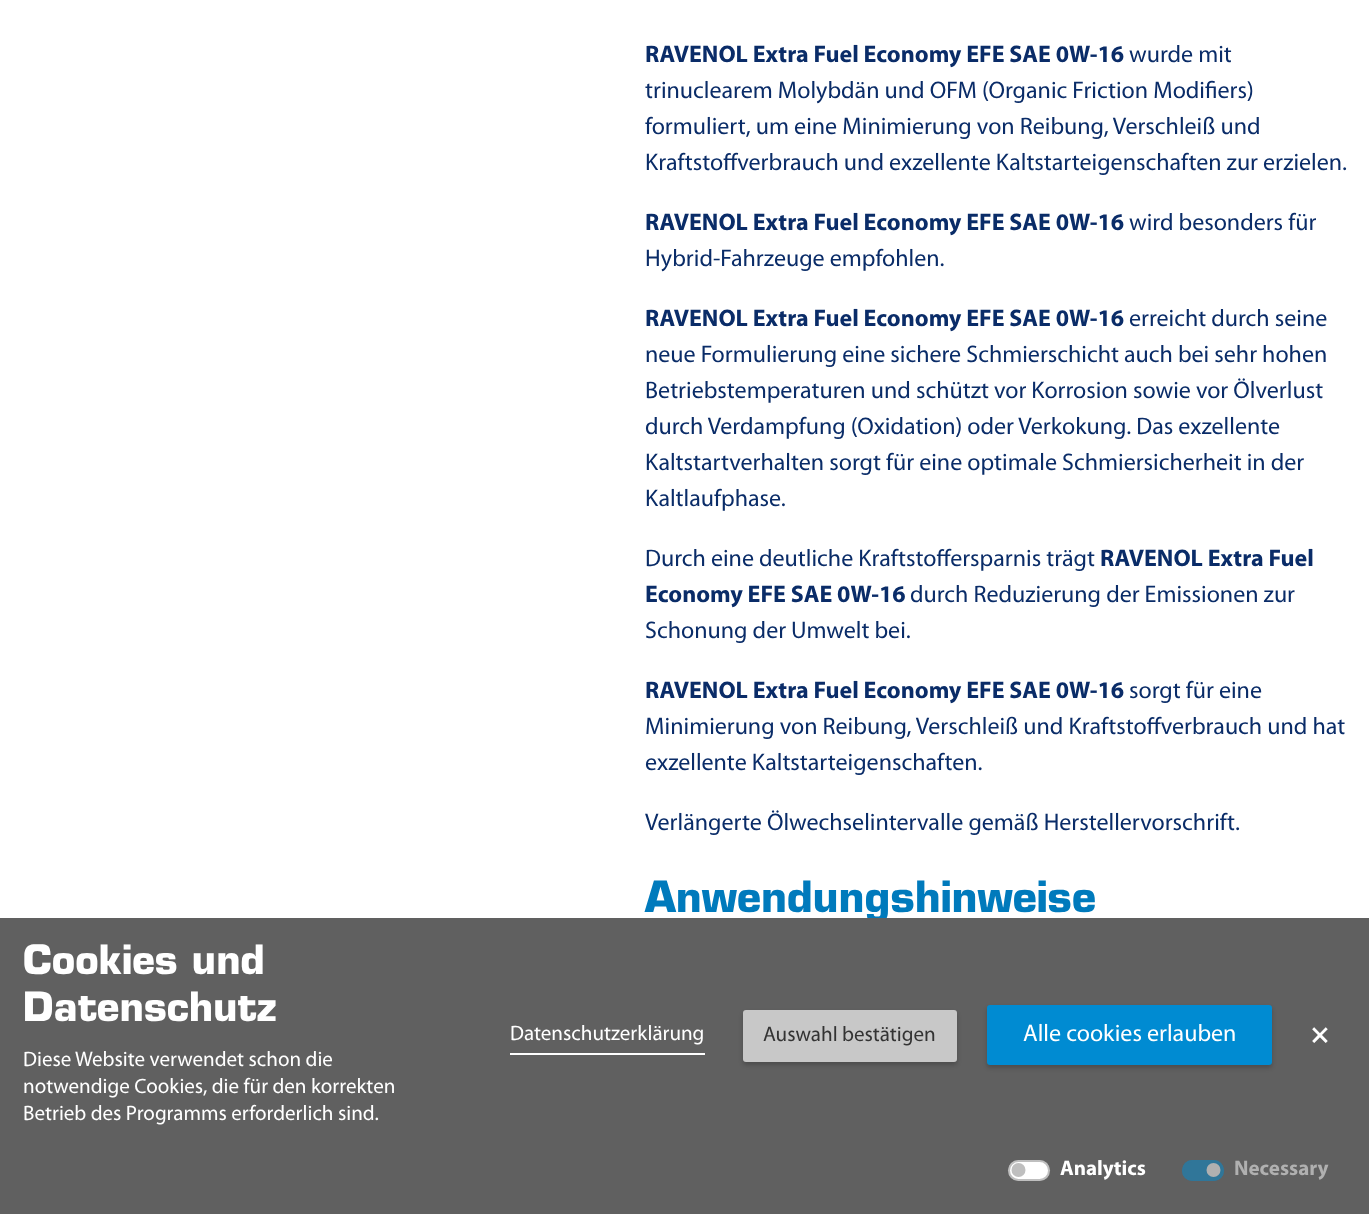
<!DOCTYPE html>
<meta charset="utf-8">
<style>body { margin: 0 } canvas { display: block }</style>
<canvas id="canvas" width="1369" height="1214"></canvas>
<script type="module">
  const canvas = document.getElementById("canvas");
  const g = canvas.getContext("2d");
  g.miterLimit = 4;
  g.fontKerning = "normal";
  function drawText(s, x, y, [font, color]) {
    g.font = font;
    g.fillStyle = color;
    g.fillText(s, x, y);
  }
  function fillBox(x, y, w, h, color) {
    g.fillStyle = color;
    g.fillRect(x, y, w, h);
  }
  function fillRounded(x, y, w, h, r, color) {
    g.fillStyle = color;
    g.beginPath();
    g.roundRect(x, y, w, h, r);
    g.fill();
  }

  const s1 = ["bold 24px Myriad", "#0A2C68"];
  const s2 = ["24px Myriad", "#0A2C68"];
  const s3 = ["bold 42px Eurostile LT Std", "#007ABC"];
  const s4 = ["bold 39.5px Eurostile LT Std", "#FFFFFF"];
  const s5 = ["21px Myriad", "#FFFFFF"];
  const s6 = ["21px Myriad", "#333333"];
  const s7 = ["24px Myriad", "#FFFFFF"];
  const s8 = ["bold 30px Myriad", "#FFFFFF"];
  const s9 = ["bold 21px Myriad", "#FFFFFF"];
  const s10 = ["bold 21px Myriad", "#B0B0B0"];

  fillBox(0, 0, 1369, 1214, "#FFFFFF");
  drawText("RAVENOL Extra Fuel Economy EFE SAE 0W-16", 645, 62, s1);
  drawText("wurde mit", 1129, 62, s2);
  drawText("trinuclearem Molybdän und OFM (Organic Friction Modifiers)", 645, 98, s2);
  drawText("formuliert, um eine Minimierung von Reibung, Verschleiß und", 645, 134, s2);
  drawText("Kraftstoffverbrauch und exzellente Kaltstarteigenschaften zur erzielen.", 645, 170, s2);
  drawText("RAVENOL Extra Fuel Economy EFE SAE 0W-16", 645, 230, s1);
  drawText("wird besonders für", 1129, 230, s2);
  drawText("Hybrid-Fahrzeuge empfohlen.", 645, 266, s2);
  drawText("RAVENOL Extra Fuel Economy EFE SAE 0W-16", 645, 326, s1);
  drawText("erreicht durch seine", 1129, 326, s2);
  drawText("neue Formulierung eine sichere Schmierschicht auch bei sehr hohen", 645, 362, s2);
  drawText("Betriebstemperaturen und schützt vor Korrosion sowie vor Ölverlust", 645, 398, s2);
  drawText("durch Verdampfung (Oxidation) oder Verkokung. Das exzellente", 645, 434, s2);
  drawText("Kaltstartverhalten sorgt für eine optimale Schmiersicherheit in der", 645, 470, s2);
  drawText("Kaltlaufphase.", 645, 506, s2);
  drawText("Durch eine deutliche Kraftstoffersparnis trägt", 645, 566, s2);
  drawText("RAVENOL Extra Fuel", 1100, 566, s1);
  drawText("Economy EFE SAE 0W-16", 645, 602, s1);
  drawText("durch Reduzierung der Emissionen zur", 910, 602, s2);
  drawText("Schonung der Umwelt bei.", 645, 638, s2);
  drawText("RAVENOL Extra Fuel Economy EFE SAE 0W-16", 645, 698, s1);
  drawText("sorgt für eine", 1129, 698, s2);
  drawText("Minimierung von Reibung, Verschleiß und Kraftstoffverbrauch und hat", 645, 734, s2);
  drawText("exzellente Kaltstarteigenschaften.", 645, 770, s2);
  drawText("Verlängerte Ölwechselintervalle gemäß Herstellervorschrift.", 645, 830, s2);
  drawText("Anwendungshinweise", 645, 912, s3);
  fillBox(0, 918, 1369, 296, "#606060");
  drawText("Cookies und", 23, 974, s4);
  drawText("Datenschutz", 23, 1021, s4);
  drawText("Diese Website verwendet schon die", 23, 1066, s5);
  drawText("notwendige Cookies, die für den korrekten", 23, 1093, s5);
  drawText("Betrieb des Programms erforderlich sind.", 23, 1120, s5);
  fillBox(510, 1053, 195, 2, "#FFFFFF");
  drawText("Datenschutzerklärung", 510, 1040, s5);
  g.fillStyle = "rgba(0, 0, 0, 0.2)";
  g.filter = "blur(2px)";
  g.beginPath();
  g.roundRect(743, 1013, 214, 52, 3);
  g.fill();
  g.filter = "none";
  fillRounded(743, 1010, 214, 52, 3, "#C8C8C8");
  drawText("Auswahl bestätigen", 763, 1041, s6);
  g.fillStyle = "rgba(0, 0, 0, 0.2)";
  g.filter = "blur(2px)";
  g.beginPath();
  g.roundRect(987, 1008, 285, 60, 3);
  g.fill();
  g.filter = "none";
  fillRounded(987, 1005, 285, 60, 3, "#008BD2");
  drawText("Alle cookies erlauben", 1023, 1041, s7);
  drawText("×", 1311, 1043, s8);
  fillRounded(1008, 1160, 42, 21, 10.5, "#FFFFFF");
  g.fillStyle = "#BFBFBF";
  g.beginPath();
  g.arc(1018.5, 1170, 7, 0, Math.PI * 2);
  g.fill();
  g.beginPath();
  g.roundRect(1009, 1161, 40, 19, 9.5);
  g.strokeStyle = "rgba(0, 0, 0, 0.25)";
  g.lineWidth = 2;
  g.stroke();
  drawText("Analytics", 1060, 1175, s9);
  fillRounded(1182, 1160, 42, 21, 10.5, "#307699");
  g.fillStyle = "#B0B0B0";
  g.beginPath();
  g.arc(1213.5, 1170, 7, 0, Math.PI * 2);
  g.fill();
  g.beginPath();
  g.roundRect(1183, 1161, 40, 19, 9.5);
  g.strokeStyle = "#307699";
  g.stroke();
  drawText("Necessary", 1234, 1175, s10);
</script>
